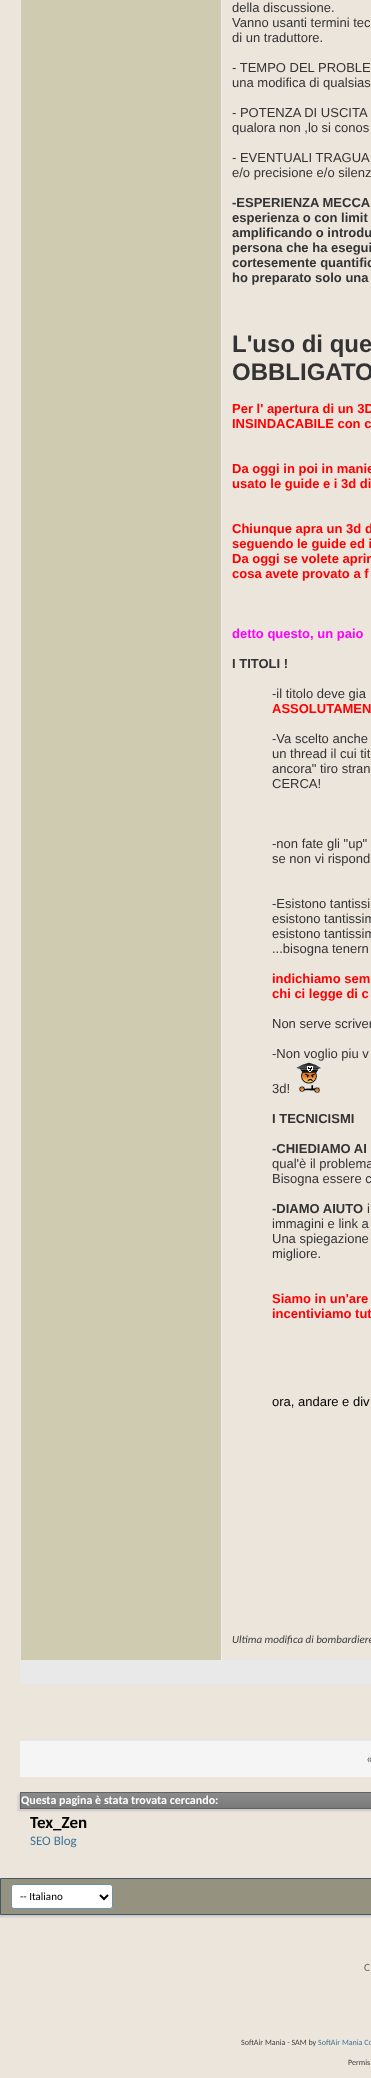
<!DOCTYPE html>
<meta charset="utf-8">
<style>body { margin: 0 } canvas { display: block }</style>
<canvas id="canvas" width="371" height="2078"></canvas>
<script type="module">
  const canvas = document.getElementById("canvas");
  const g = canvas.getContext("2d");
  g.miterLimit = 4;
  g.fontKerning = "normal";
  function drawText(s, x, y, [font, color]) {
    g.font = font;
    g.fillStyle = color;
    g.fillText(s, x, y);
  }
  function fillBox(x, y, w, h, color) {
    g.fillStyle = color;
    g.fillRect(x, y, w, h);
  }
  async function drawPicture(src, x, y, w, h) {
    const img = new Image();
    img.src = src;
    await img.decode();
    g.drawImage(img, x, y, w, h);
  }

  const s1 = ["13px Liberation Sans", "#333333"];
  const s2 = ["bold 13px Liberation Sans", "#333333"];
  const s3 = ["bold 24px Liberation Sans", "#333333"];
  const s4 = ["bold 13px Liberation Sans", "#FF0000"];
  const s5 = ["bold 13px Liberation Sans", "#FF00FF"];
  const s6 = ["13px Liberation Sans", "#000000"];
  const s7 = ["italic 11px Carlito", "#3E3E3E"];
  const s8 = ["13px Carlito", "#5D5D5D"];
  const s9 = ["bold 12px Carlito", "#FFFFFF"];
  const s10 = ["bold 17px Carlito", "#000000"];
  const s11 = ["13px Carlito", "#417394"];
  const s12 = ["11px Carlito", "#000000"];
  const s13 = ["11px Carlito", "#666666"];
  const s14 = ["8px Carlito", "#3E3E3E"];
  const s15 = ["8px Carlito", "#417394"];

  fillBox(0, 0, 371, 2078, "#ECE5DC");
  g.strokeStyle = "#E9E9E9";
  g.strokeRect(20.5, -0.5, 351, 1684);
  fillBox(21, 0, 200, 1660, "#CECBB1");
  fillBox(221, 0, 1, 1660, "#EFEFEF");
  drawText("della discussione.", 232, 12, s1);
  drawText("Vanno usanti termini tec", 232, 27, s1);
  drawText("di un traduttore.", 232, 42, s1);
  drawText("- TEMPO DEL PROBLE", 232, 72, s1);
  drawText("una modifica di qualsias", 232, 87, s1);
  drawText("- POTENZA DI USCITA", 232, 117, s1);
  drawText("qualora non ,lo si conos", 232, 132, s1);
  drawText("- EVENTUALI TRAGUA", 232, 162, s1);
  drawText("e/o precisione e/o silenz", 232, 177, s1);
  drawText("-ESPERIENZA MECCA", 232, 207, s2);
  drawText("esperienza o con limit", 232, 222, s2);
  drawText("amplificando o introdu", 232, 237, s2);
  drawText("persona che ha esegui", 232, 252, s2);
  drawText("cortesemente quantific", 232, 267, s2);
  drawText("ho preparato solo una", 232, 282, s2);
  drawText("L'uso di que", 232, 352, s3);
  drawText("OBBLIGATO", 232, 380, s3);
  drawText("Per l' apertura di un 3D", 232, 413, s4);
  drawText("INSINDACABILE con c", 232, 428, s4);
  drawText("Da oggi in poi in manie", 232, 473, s4);
  drawText("usato le guide e i 3d di", 232, 488, s4);
  drawText("Chiunque apra un 3d d", 232, 533, s4);
  drawText("seguendo le guide ed i", 232, 548, s4);
  drawText("Da oggi se volete aprir", 232, 563, s4);
  drawText("cosa avete provato a f", 232, 578, s4);
  drawText("detto questo, un paio", 232, 638, s5);
  drawText("I TITOLI !", 232, 668, s2);
  drawText("-il titolo deve gia", 272, 698, s1);
  drawText("ASSOLUTAMEN", 272, 713, s4);
  drawText("-Va scelto anche", 272, 743, s1);
  drawText("un thread il cui tit", 272, 758, s1);
  drawText("ancora\" tiro stran", 272, 773, s1);
  drawText("CERCA!", 272, 788, s1);
  drawText("-non fate gli \"up\"", 272, 848, s1);
  drawText("se non vi rispond", 272, 863, s1);
  drawText("-Esistono tantissi", 272, 908, s1);
  drawText("esistono tantissim", 272, 923, s1);
  drawText("esistono tantissim", 272, 938, s1);
  drawText("...bisogna tenern", 272, 953, s1);
  drawText("indichiamo sem", 272, 983, s4);
  drawText("chi ci legge di c", 272, 998, s4);
  drawText("Non serve scriver", 272, 1028, s1);
  drawText("-Non voglio piu v", 272, 1058, s1);
  drawText("3d!", 272, 1093, s1);
  await drawPicture("pic1.png", 296, 1062, 25, 31);
  drawText("I TECNICISMI", 272, 1123, s2);
  drawText("-CHIEDIAMO AI", 272, 1153, s2);
  drawText("qual'è il problema", 272, 1168, s1);
  drawText("Bisogna essere c", 272, 1183, s1);
  drawText("-DIAMO AIUTO", 272, 1213, s2);
  drawText("i", 367, 1213, s1);
  drawText("immagini e link a", 272, 1228, s1);
  drawText("Una spiegazione", 272, 1243, s1);
  drawText("migliore.", 272, 1258, s1);
  drawText("Siamo in un'are", 272, 1303, s4);
  drawText("incentiviamo tut", 272, 1318, s4);
  drawText("ora, andare e div", 272, 1406, s6);
  drawText("Ultima modifica di bombardiere", 232, 1643, s7);
  fillBox(21, 1660, 350, 23, "#E9E9E9");
  fillBox(20, 1741, 351, 36, "#F5F5F5");
  fillBox(20, 1740, 351, 1, "#E7E7E7");
  drawText("«", 366, 1763, s8);
  g.fillStyle = "#C8C8C8";
  g.filter = "blur(1px)";
  g.beginPath();
  g.rect(18, 1794, 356, 17);
  g.fill();
  g.filter = "none";
  fillBox(21, 1793, 350, 15, "#707070");
  await drawPicture("pic2.png", 21, 1793, 350, 15);
  g.strokeStyle = "#606060";
  g.strokeRect(20.5, 1792.5, 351, 16);
  drawText("Questa pagina è stata trovata cercando:", 21, 1804, s9);
  drawText("Tex_Zen", 30, 1828, s10);
  drawText("SEO Blog", 30, 1845, s11);
  g.fillStyle = "#C8C8C8";
  g.filter = "blur(1px)";
  g.beginPath();
  g.rect(-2, 1880, 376, 37);
  g.fill();
  g.filter = "none";
  g.fillStyle = "#959280";
  g.beginPath();
  g.rect(0.5, 1878.5, 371, 36);
  g.fill();
  g.strokeStyle = "#425769";
  g.stroke();
  g.fillStyle = "#FFFFFF";
  g.beginPath();
  g.roundRect(11.5, 1884.5, 101, 24, 2.5);
  g.fill();
  g.strokeStyle = "#6B91AB";
  g.stroke();
  g.beginPath();
  g.moveTo(100, 1895);
  g.lineTo(104, 1899);
  g.lineTo(108, 1895);
  g.strokeStyle = "#000000";
  g.lineWidth = 2;
  g.stroke();
  drawText("-- Italiano", 20, 1900, s12);
  drawText("C", 364, 1971, s13);
  drawText("SoftAir Mania - SAM by", 241, 2045, s14);
  drawText("SoftAir Mania Co", 318, 2045, s15);
  drawText("Permis", 348, 2065, s14);
</script>
